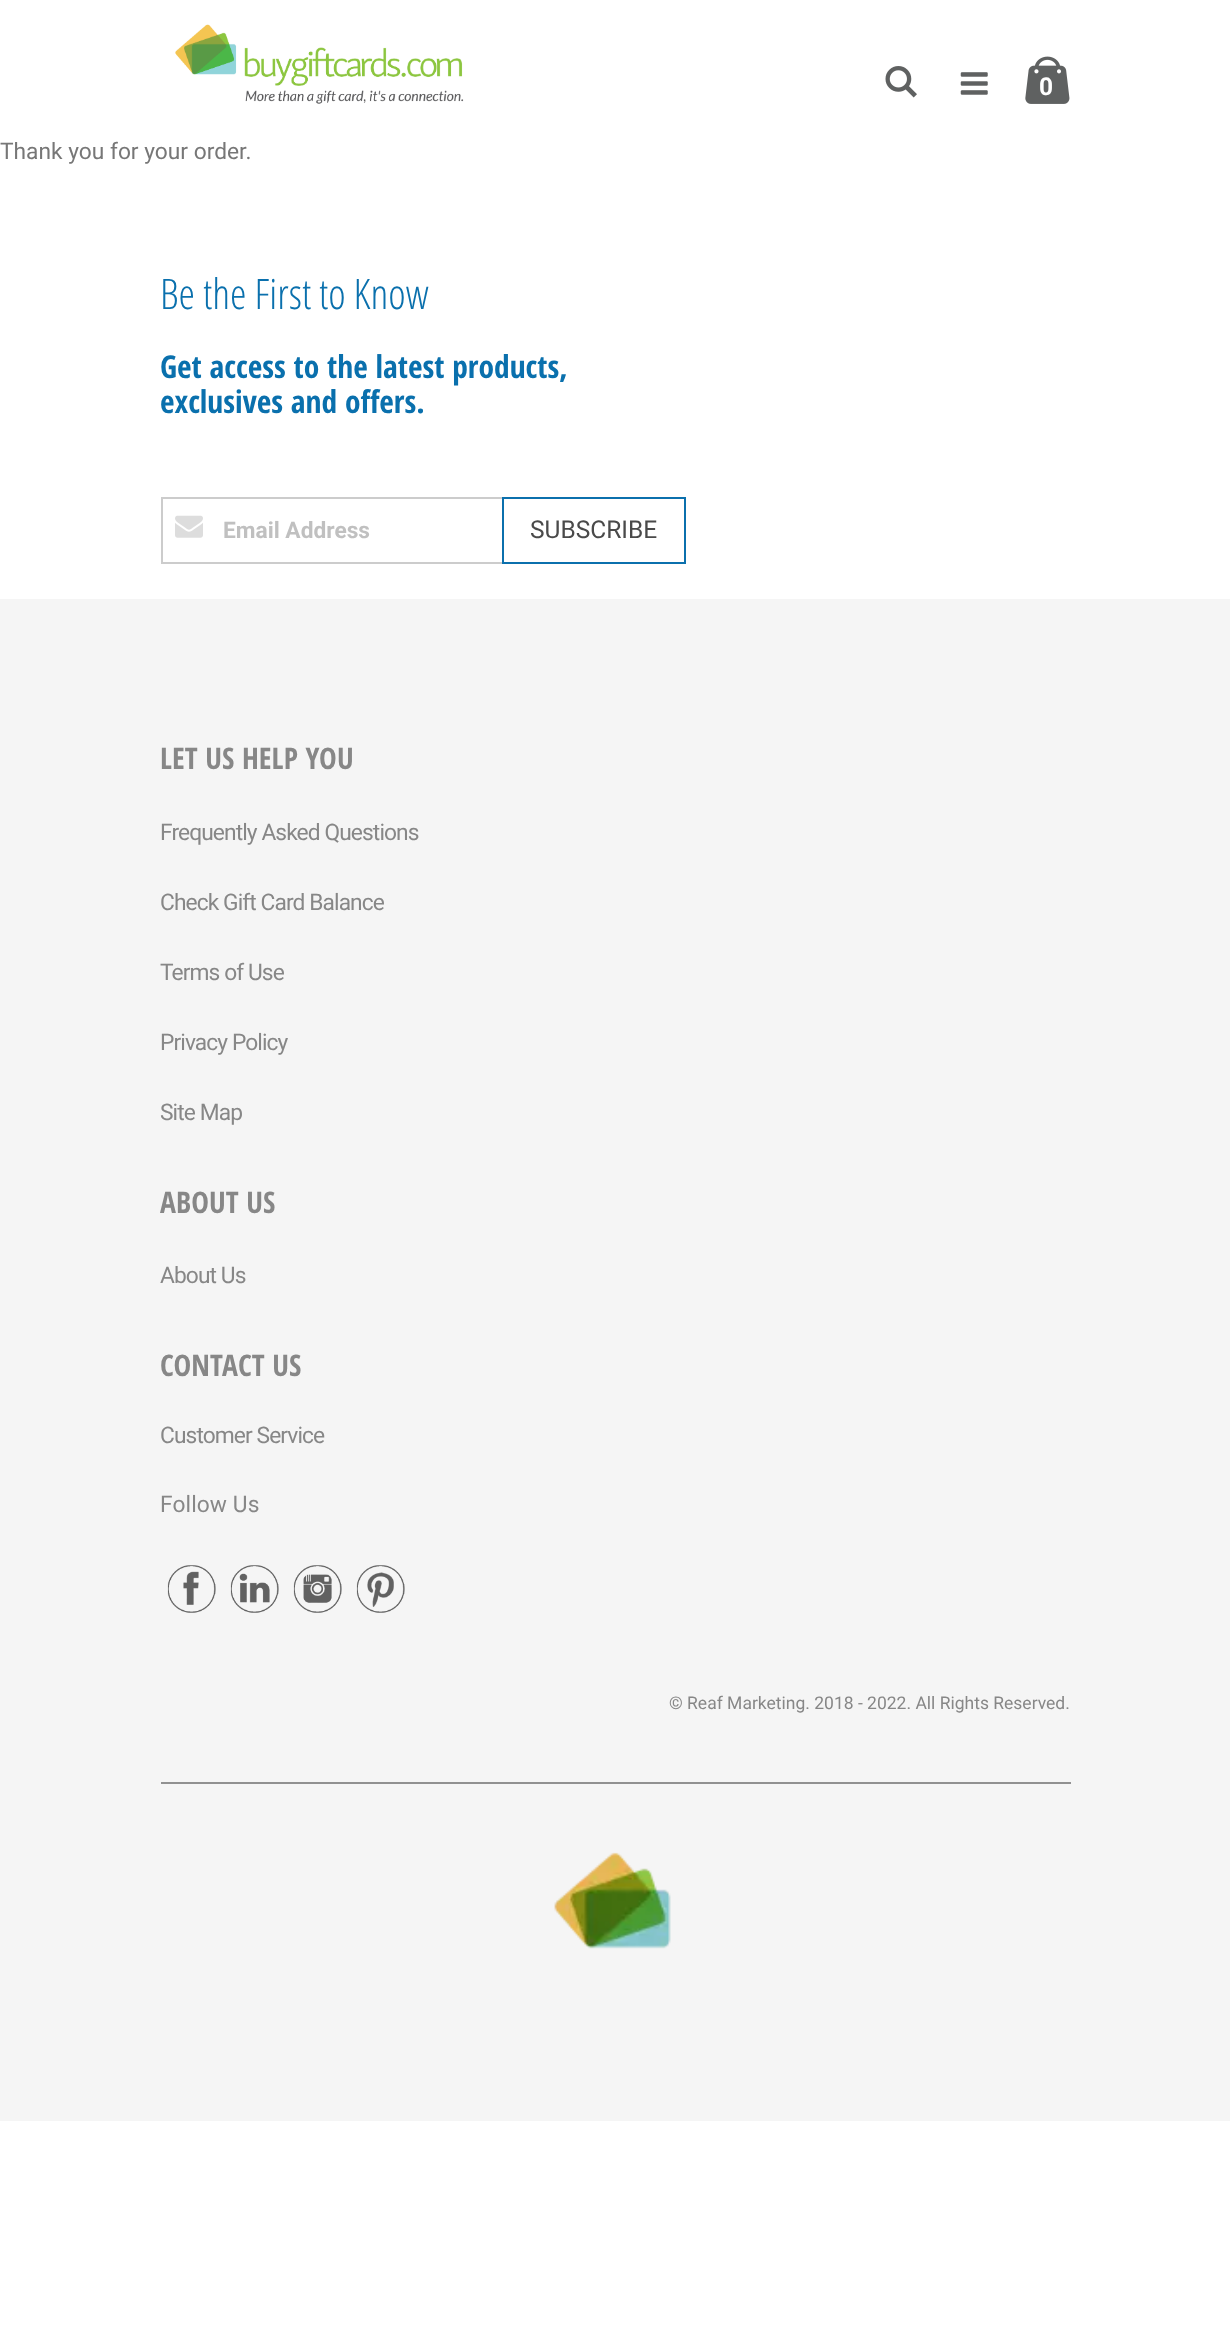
<!DOCTYPE html>
<meta charset="utf-8">
<style>body { margin: 0 } canvas { display: block }</style>
<canvas id="canvas" width="1230" height="2331"></canvas>
<script type="module">
  const canvas = document.getElementById("canvas");
  const g = canvas.getContext("2d");
  g.miterLimit = 4;
  g.fontKerning = "normal";
  function drawText(s, x, y, [font, color]) {
    g.font = font;
    g.fillStyle = color;
    g.fillText(s, x, y);
  }
  function fillBox(x, y, w, h, color) {
    g.fillStyle = color;
    g.fillRect(x, y, w, h);
  }
  async function drawPicture(src, x, y, w, h) {
    const img = new Image();
    img.src = src;
    await img.decode();
    g.drawImage(img, x, y, w, h);
  }

  const s1 = ["bold 24.5px Roboto", "#FFFFFF"];
  const s2 = ["22.75px Roboto", "#777777"];
  const s3 = ["300 42px Open Sans Condensed", "#0A70AD"];
  const s4 = ["bold 31.5px Open Sans Condensed", "#0A70AD"];
  const s5 = ["bold 22.75px Roboto", "#C0C0C0"];
  const s6 = ["24.5px Roboto", "#4A4A4A"];
  const s7 = ["bold 29.75px Open Sans Condensed", "#878787"];
  const s8 = ["22.75px Roboto", "#878787"];
  const s9 = ["17.5px Roboto", "#878787"];

  fillBox(0, 0, 1230, 2331, "#FFFFFF");
  await drawPicture("pic1.png", 175, 24, 289, 80);
  await drawPicture("pic2.png", 885, 66, 32, 32);
  await drawPicture("pic3.png", 960, 72, 28, 23);
  await drawPicture("pic4.png", 1025, 56, 45, 48);
  drawText("0", 1039, 95, s1);
  drawText("Thank you for your order.", 0, 159, s2);
  drawText("Be the First to Know", 160, 309, s3);
  drawText("Get access to the latest products,", 160, 378, s4);
  drawText("exclusives and offers.", 160, 413, s4);
  g.strokeStyle = "#CCCCCC";
  g.lineWidth = 2;
  g.strokeRect(162, 498, 341, 65);
  await drawPicture("pic5.png", 175, 515, 28, 23);
  drawText("Email Address", 223, 538, s5);
  g.strokeStyle = "#0B70AD";
  g.strokeRect(503, 498, 182, 65);
  drawText("SUBSCRIBE", 530, 538, s6);
  fillBox(0, 599, 1230, 1522, "#F5F5F5");
  g.letterSpacing = "0.1px";
  drawText("LET US HELP YOU", 160, 769, s7);
  g.letterSpacing = "-0.9px";
  drawText("Frequently Asked Questions", 160, 840, s8);
  drawText("Check Gift Card Balance", 160, 910, s8);
  drawText("Terms of Use", 160, 980, s8);
  drawText("Privacy Policy", 160, 1050, s8);
  drawText("Site Map", 160, 1120, s8);
  g.letterSpacing = "0.1px";
  drawText("ABOUT US", 160, 1213, s7);
  g.letterSpacing = "-0.9px";
  drawText("About Us", 160, 1283, s8);
  g.letterSpacing = "0.1px";
  drawText("CONTACT US", 160, 1376, s7);
  g.letterSpacing = "-0.9px";
  drawText("Customer Service", 160, 1443, s8);
  g.letterSpacing = "0.1px";
  drawText("Follow Us", 160, 1512, s8);
  await drawPicture("pic6.png", 167, 1565, 49, 48);
  await drawPicture("pic7.png", 230, 1565, 49, 48);
  await drawPicture("pic8.png", 293, 1565, 49, 48);
  await drawPicture("pic9.png", 356, 1565, 49, 48);
  g.letterSpacing = "0px";
  drawText("© Reaf Marketing. 2018 - 2022. All Rights Reserved.", 669, 1709, s9);
  fillBox(161, 1782, 910, 2, "#919191");
  await drawPicture("pic10.png", 554, 1852, 117, 97);
</script>
